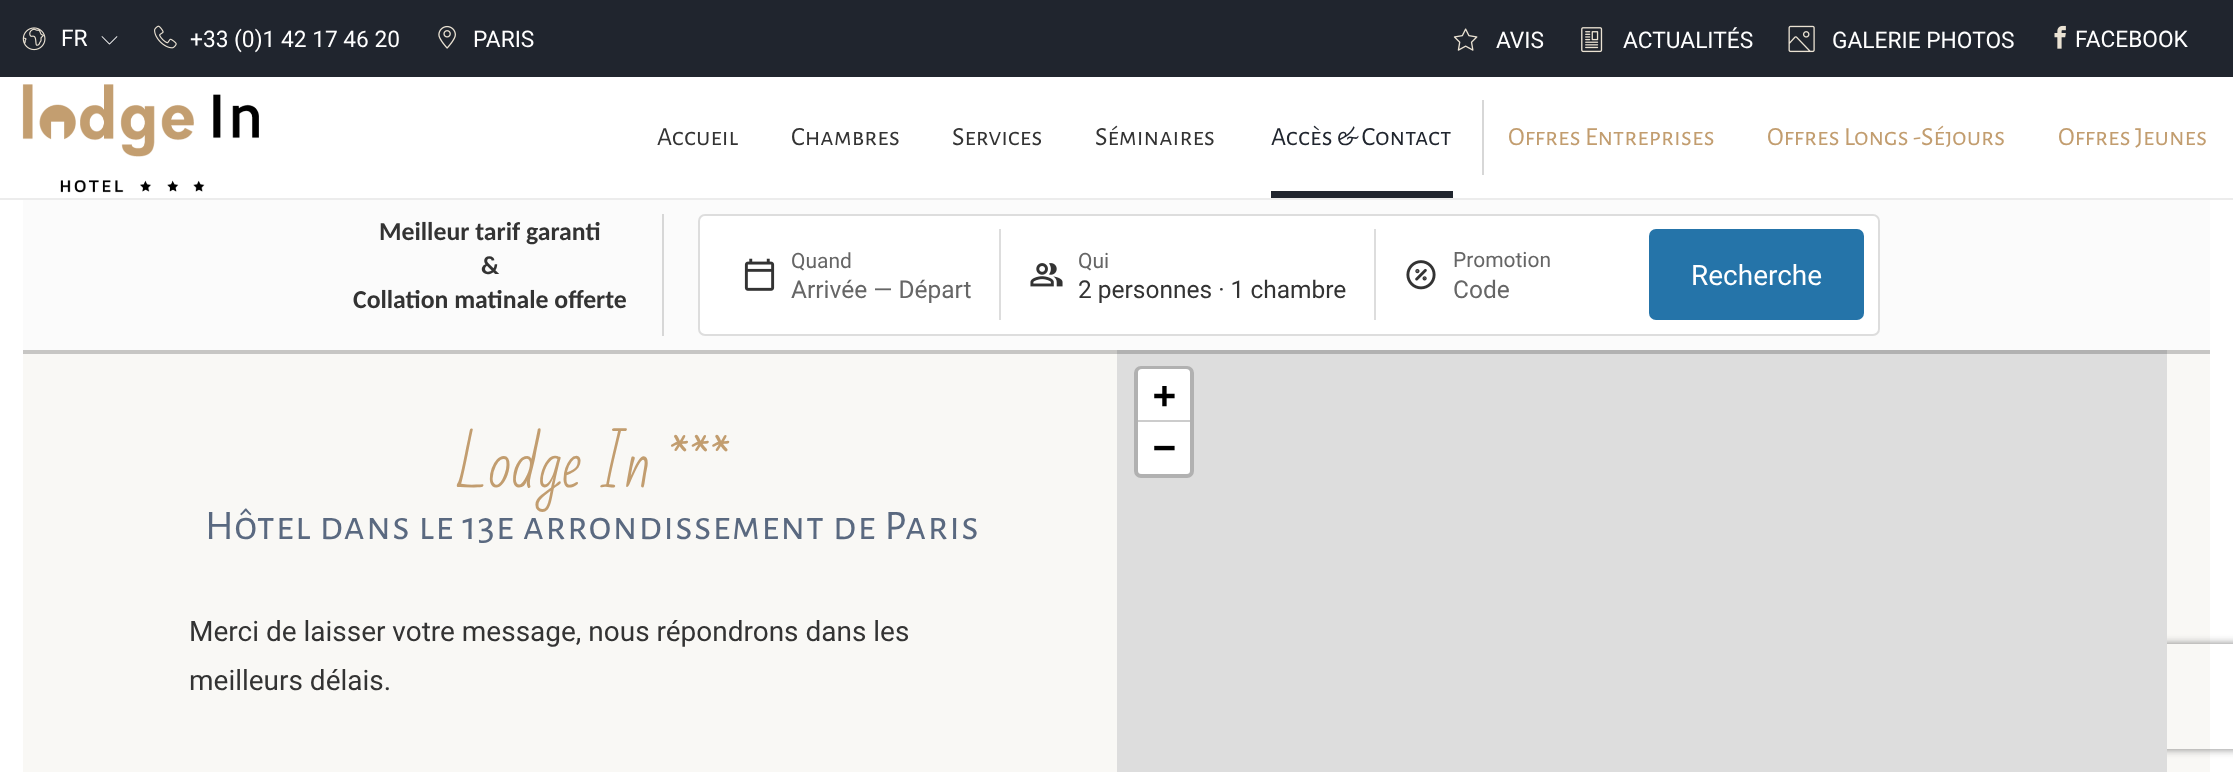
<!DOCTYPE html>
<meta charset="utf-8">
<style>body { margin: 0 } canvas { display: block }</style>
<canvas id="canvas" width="2233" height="772"></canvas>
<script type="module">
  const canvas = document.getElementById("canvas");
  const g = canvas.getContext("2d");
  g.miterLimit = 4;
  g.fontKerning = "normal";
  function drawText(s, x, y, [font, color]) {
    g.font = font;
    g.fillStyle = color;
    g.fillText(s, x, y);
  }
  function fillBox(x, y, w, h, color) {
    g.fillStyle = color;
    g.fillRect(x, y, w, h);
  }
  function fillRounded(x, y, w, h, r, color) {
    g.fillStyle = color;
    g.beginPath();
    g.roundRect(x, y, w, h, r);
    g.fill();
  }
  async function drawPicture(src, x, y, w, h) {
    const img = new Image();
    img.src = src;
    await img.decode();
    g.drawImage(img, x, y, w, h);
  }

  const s1 = ["22.75px Roboto", "#FFFFFF"];
  const s2 = ["26.25px Alegreya Sans SC", "#333333"];
  const s3 = ["26.25px Alegreya Sans SC", "#20252E"];
  const s4 = ["26.25px Alegreya Sans SC", "#C29D6F"];
  const s5 = ["bold 25.75px Carlito", "#333333"];
  const s6 = ["21px Roboto", "#666666"];
  const s7 = ["24.5px Roboto", "#666666"];
  const s8 = ["24.5px Roboto", "#333333"];
  const s9 = ["28px Roboto", "#FFFFFF"];
  const s10 = ["bold 38px DejaVu Sans Mono", "#000000"];
  const s11 = ["61.25px Bad Script", "#C29D6F"];
  const s12 = ["42px Alegreya Sans SC", "#5A6980"];
  const s13 = ["28px Roboto", "#333333"];

  fillBox(0, 0, 2233, 772, "#FFFFFF");
  fillBox(0, 198, 2233, 2, "#ECECEC");
  fillBox(0, 0, 2233, 77, "#20252E");
  await drawPicture("pic1.png", 22, 27, 24, 24);
  drawText("FR", 61, 46, s1);
  await drawPicture("pic2.png", 101, 36, 17, 9);
  await drawPicture("pic3.png", 154, 25, 23, 24);
  drawText("+33 (0)1 42 17 46 20", 190, 47, s1);
  await drawPicture("pic4.png", 438, 25, 18, 24);
  drawText("PARIS", 473, 47, s1);
  await drawPicture("pic5.png", 1453, 28, 25, 23);
  drawText("AVIS", 1496, 48, s1);
  await drawPicture("pic6.png", 1581, 27, 22, 26);
  drawText("ACTUALITÉS", 1623, 48, s1);
  await drawPicture("pic7.png", 1788, 25, 27, 28);
  drawText("GALERIE PHOTOS", 1832, 48, s1);
  await drawPicture("pic8.png", 2054, 25, 12, 24);
  drawText("FACEBOOK", 2075, 47, s1);
  await drawPicture("pic9.png", 22, 84, 237, 109);
  drawText("Accueil", 657, 145, s2);
  drawText("Chambres", 791, 145, s2);
  drawText("Services", 952, 145, s2);
  drawText("Séminaires", 1095, 145, s2);
  fillBox(1271, 191, 182, 7, "#20252E");
  drawText("Accès & Contact", 1271, 145, s3);
  fillBox(1482, 100, 2, 75, "#D7D7D7");
  drawText("Offres Entreprises", 1508, 145, s4);
  drawText("Offres Longs -Séjours", 1767, 145, s4);
  drawText("Offres Jeunes", 2058, 145, s4);
  fillBox(23, 200, 2187, 150, "#FBFBFB");
  drawText("Meilleur tarif garanti", 379, 240, s5);
  drawText("&", 481, 274, s5);
  drawText("Collation matinale offerte", 353, 308, s5);
  fillBox(662, 214, 2, 122, "#D7D7D7");
  g.fillStyle = "#FFFFFF";
  g.beginPath();
  g.roundRect(699, 215, 1180, 120, 6);
  g.fill();
  g.strokeStyle = "#DDDDDD";
  g.lineWidth = 2;
  g.stroke();
  await drawPicture("pic10.png", 744, 258, 31, 33);
  drawText("Quand", 791, 268, s6);
  drawText("Arrivée — Départ", 791, 298, s7);
  fillBox(999, 229, 2, 91, "#DDDDDD");
  await drawPicture("pic11.png", 1030, 263, 33, 24);
  drawText("Qui", 1078, 268, s6);
  drawText("2 personnes · 1 chambre", 1078, 298, s8);
  fillBox(1374, 229, 2, 91, "#DDDDDD");
  await drawPicture("pic12.png", 1406, 260, 30, 30);
  drawText("Promotion", 1453, 267, s6);
  drawText("Code", 1453, 298, s7);
  fillRounded(1649, 229, 215, 91, 7, "#2574A9");
  drawText("Recherche", 1691, 285, s9);
  fillBox(23, 354, 2187, 418, "#F9F8F5");
  fillBox(23, 350, 2187, 4, "#C7C6C4");
  g.save();
  g.beginPath();
  g.moveTo(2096, 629);
  g.lineTo(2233, 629);
  g.lineTo(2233, 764);
  g.lineTo(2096, 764);
  g.closePath();
  g.moveTo(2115, 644);
  g.lineTo(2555, 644);
  g.bezierCurveTo(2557, 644, 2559, 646, 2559, 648);
  g.lineTo(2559, 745);
  g.bezierCurveTo(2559, 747, 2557, 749, 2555, 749);
  g.lineTo(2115, 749);
  g.bezierCurveTo(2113, 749, 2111, 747, 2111, 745);
  g.lineTo(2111, 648);
  g.bezierCurveTo(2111, 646, 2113, 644, 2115, 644);
  g.closePath();
  g.clip("evenodd");
  g.fillStyle = "#808080";
  g.filter = "blur(4.5px)";
  g.beginPath();
  g.roundRect(2111, 644, 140, 105, 4);
  g.fill();
  g.filter = "none";
  g.restore();
  fillBox(1117, 354, 1050, 418, "#DDDDDD");
  fillBox(1117, 350, 1050, 4, "#B1B1B1");
  g.beginPath();
  g.roundRect(1136, 368, 56, 108, 5);
  g.strokeStyle = "#B1B1B1";
  g.lineWidth = 4;
  g.stroke();
  g.fillStyle = "#FFFFFF";
  g.beginPath();
  g.roundRect(1138, 369, 52, 53, [4, 4, 0, 0]);
  g.fill();
  fillBox(1138, 420, 52, 2, "#CCCCCC");
  drawText("+", 1153, 408, s10);
  g.fillStyle = "#FFFFFF";
  g.beginPath();
  g.roundRect(1138, 422, 52, 52, [0, 0, 4, 4]);
  g.fill();
  drawText("−", 1153, 460, s10);
  drawText("Lodge In ***", 455, 487, s11);
  g.letterSpacing = "0.9px";
  drawText("Hôtel dans le 13e arrondissement de Paris", 205, 539, s12);
  g.letterSpacing = "0px";
  drawText("Merci de laisser votre message, nous répondrons dans les", 189, 641, s13);
  drawText("meilleurs délais.", 189, 690, s13);
</script>
